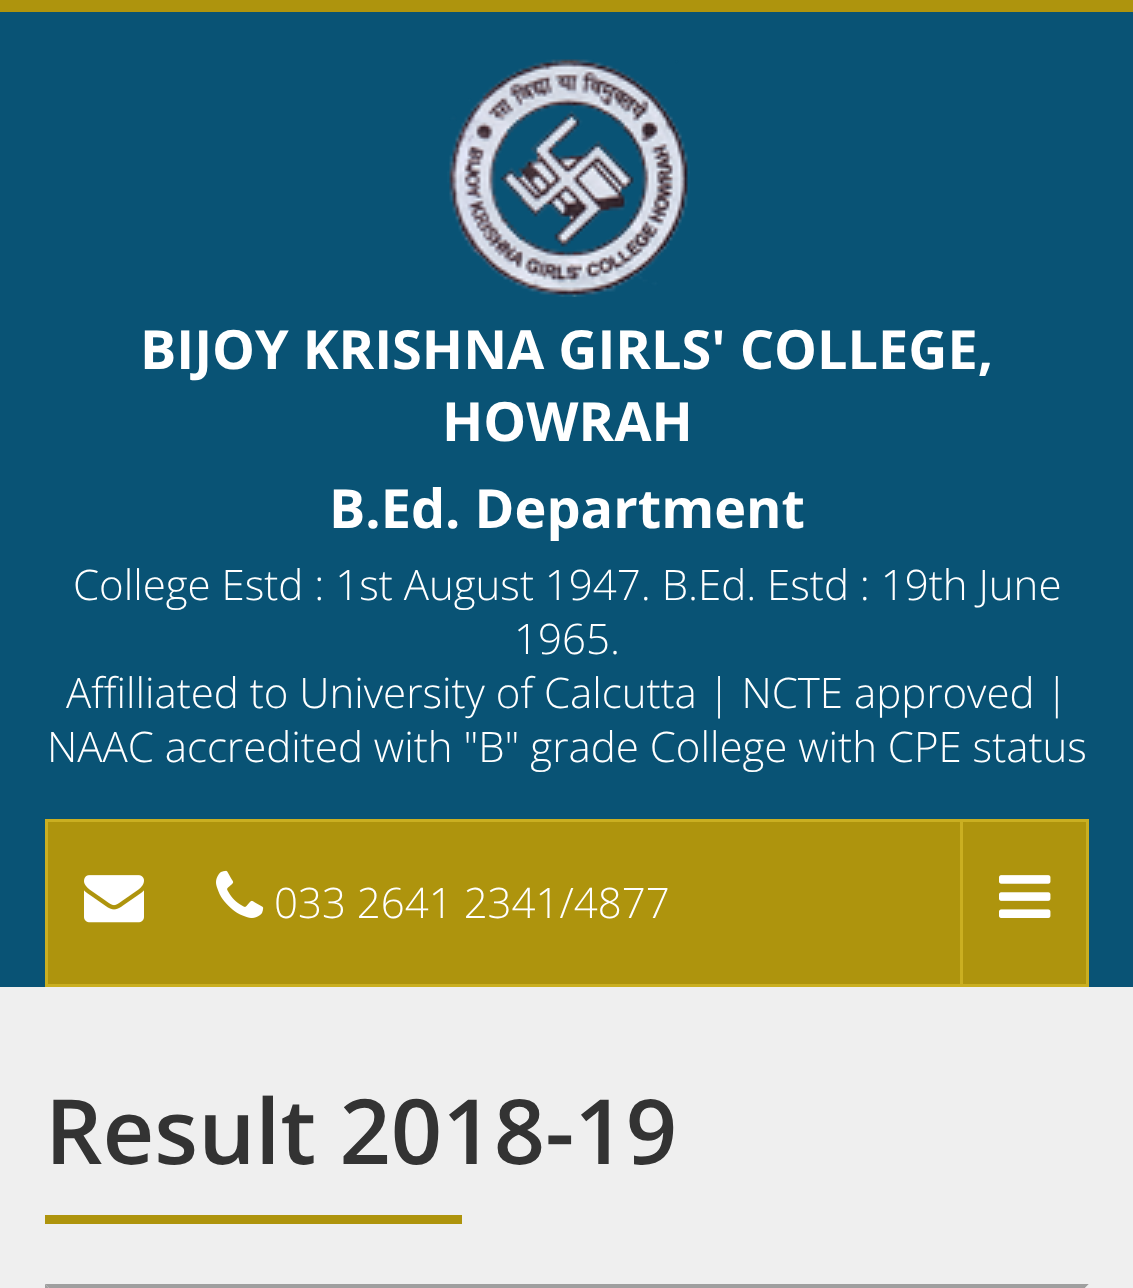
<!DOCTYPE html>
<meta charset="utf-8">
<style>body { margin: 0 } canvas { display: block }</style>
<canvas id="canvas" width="1133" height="1288"></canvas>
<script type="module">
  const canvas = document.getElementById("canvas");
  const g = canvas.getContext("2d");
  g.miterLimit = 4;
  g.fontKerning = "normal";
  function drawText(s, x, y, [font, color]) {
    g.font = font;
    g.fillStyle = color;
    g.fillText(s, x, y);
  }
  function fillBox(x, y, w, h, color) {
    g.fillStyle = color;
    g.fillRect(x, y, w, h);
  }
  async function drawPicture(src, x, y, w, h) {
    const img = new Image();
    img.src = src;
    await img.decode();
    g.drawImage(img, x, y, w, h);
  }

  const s1 = ["bold 54px Open Sans", "#FFFFFF"];
  const s2 = ["300 42px Open Sans", "#FFFFFF"];
  const s3 = ["600 90px Open Sans", "#333333"];

  fillBox(0, 0, 1133, 1288, "#EFEFEF");
  fillBox(0, 12, 1133, 975, "#095375");
  fillBox(0, 0, 1133, 12, "#AE940D");
  await drawPicture("pic1.png", 447, 59, 243, 238);
  drawText("BIJOY KRISHNA GIRLS' COLLEGE,", 140, 369, s1);
  drawText("HOWRAH", 442, 441, s1);
  drawText("B.Ed. Department", 329, 528, s1);
  drawText("College Estd : 1st August 1947. B.Ed. Estd : 19th June", 73, 600, s2);
  drawText("1965.", 514, 654, s2);
  drawText("Affilliated to University of Calcutta | NCTE approved |", 66, 708, s2);
  drawText("NAAC accredited with \"B\" grade College with CPE status", 47, 762, s2);
  g.fillStyle = "#AE940D";
  g.beginPath();
  g.rect(46.5, 820.5, 1041, 165);
  g.fill();
  g.strokeStyle = "#CAAF21";
  g.lineWidth = 3;
  g.stroke();
  await drawPicture("pic2.png", 84, 875, 60, 48);
  await drawPicture("pic3.png", 216, 870, 48, 48);
  drawText("033 2641 2341/4877", 274, 918, s2);
  fillBox(960, 822, 3, 162, "#CAAF21");
  await drawPicture("pic4.png", 999, 875, 52, 43);
  drawText("Result 2018-19", 45, 1164, s3);
  fillBox(45, 1215, 417, 9, "#AE940D");
  g.fillStyle = "#9F9F9F";
  g.beginPath();
  g.moveTo(45, 1284);
  g.lineTo(1089, 1284);
  g.lineTo(1083, 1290);
  g.lineTo(51, 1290);
  g.closePath();
  g.fill();
  g.beginPath();
  g.moveTo(45, 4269);
  g.lineTo(45, 1284);
  g.lineTo(51, 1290);
  g.lineTo(51, 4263);
  g.closePath();
  g.fill();
  g.fillStyle = "#EEEEEE";
  g.beginPath();
  g.moveTo(1089, 1284);
  g.lineTo(1089, 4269);
  g.lineTo(1083, 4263);
  g.lineTo(1083, 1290);
  g.closePath();
  g.fill();
</script>
